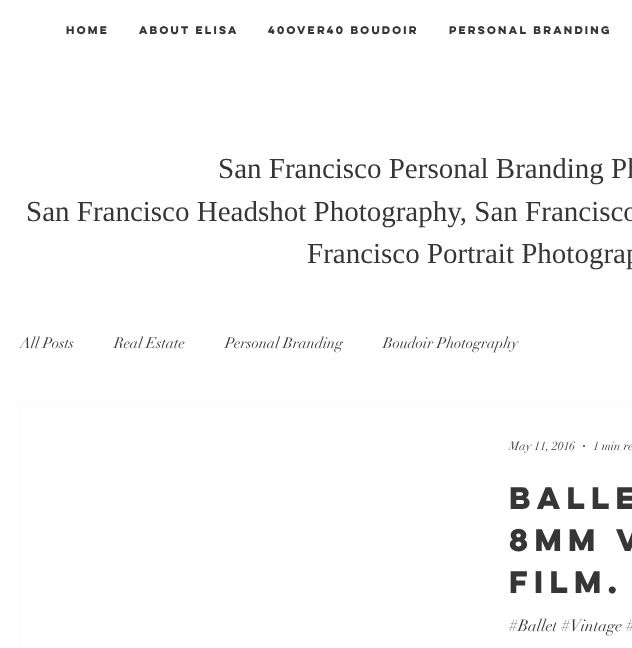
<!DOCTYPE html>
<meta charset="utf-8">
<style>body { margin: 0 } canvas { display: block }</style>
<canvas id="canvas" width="632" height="648"></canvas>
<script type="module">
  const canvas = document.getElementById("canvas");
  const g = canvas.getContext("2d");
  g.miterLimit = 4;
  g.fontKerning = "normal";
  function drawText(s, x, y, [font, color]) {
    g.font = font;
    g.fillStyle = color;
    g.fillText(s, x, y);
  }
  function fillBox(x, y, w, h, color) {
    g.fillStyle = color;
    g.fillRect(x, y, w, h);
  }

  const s1 = ["bold 10px 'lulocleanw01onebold'", "#363636"];
  const s2 = ["29px Liberation Serif", "#363636"];
  const s3 = ["15px didot", "#363636"];
  const s4 = ["12px didot", "#363636"];
  const s5 = ["bold 28px 'lulocleanw01onebold'", "#363636"];
  const s6 = ["16px didot", "#363636"];

  fillBox(0, 0, 632, 648, "#FFFFFF");
  drawText("HOME", 66, 34, s1);
  drawText("ABOUT ELISA", 139, 34, s1);
  drawText("40over40 Boudoir", 268, 34, s1);
  drawText("Personal Branding", 449, 34, s1);
  drawText("San Francisco Personal Branding Ph", 218, 178, s2);
  drawText("San Francisco Headshot Photography, San Francisco", 26, 221, s2);
  drawText("Francisco Portrait Photograp", 307, 263, s2);
  drawText("All Posts", 20, 348, s3);
  drawText("Real Estate", 114, 348, s3);
  drawText("Personal Branding", 225, 348, s3);
  drawText("Boudoir Photography", 383, 348, s3);
  g.strokeStyle = "#FAFAFA";
  g.strokeRect(20.5, 404.5, 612, 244);
  drawText("May 11, 2016", 509, 450, s4);
  g.beginPath();
  g.arc(584, 446, 1, 0, Math.PI * 2);
  g.fill();
  drawText("1 min re", 593, 450, s4);
  drawText("Balle", 509, 509, s5);
  drawText("8mm V", 509, 551, s5);
  drawText("Film.", 509, 593, s5);
  drawText("#Ballet #Vintage #", 509, 631, s6);
</script>
